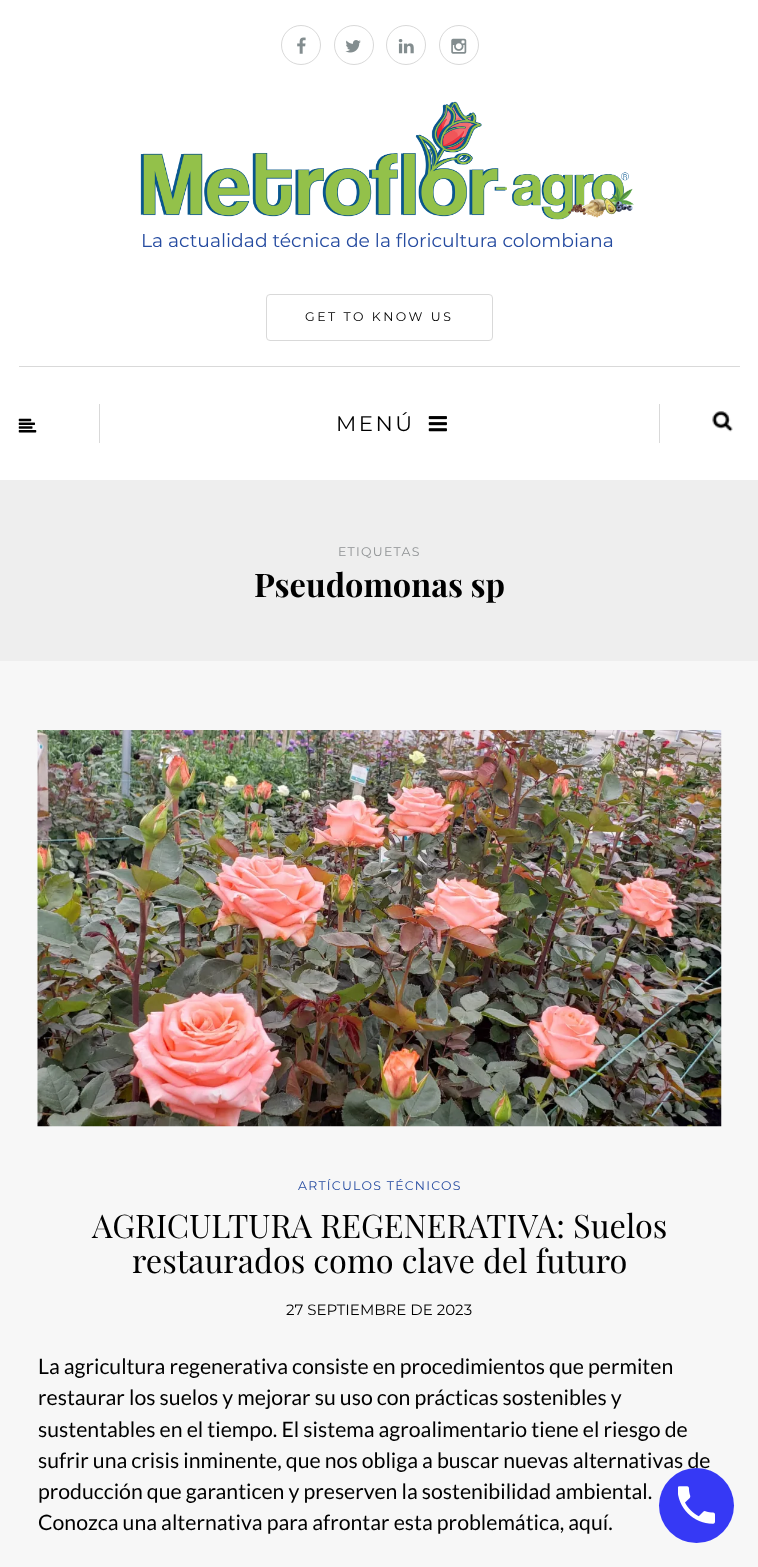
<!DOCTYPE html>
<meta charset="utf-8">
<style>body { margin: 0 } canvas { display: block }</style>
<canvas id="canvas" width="758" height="1567"></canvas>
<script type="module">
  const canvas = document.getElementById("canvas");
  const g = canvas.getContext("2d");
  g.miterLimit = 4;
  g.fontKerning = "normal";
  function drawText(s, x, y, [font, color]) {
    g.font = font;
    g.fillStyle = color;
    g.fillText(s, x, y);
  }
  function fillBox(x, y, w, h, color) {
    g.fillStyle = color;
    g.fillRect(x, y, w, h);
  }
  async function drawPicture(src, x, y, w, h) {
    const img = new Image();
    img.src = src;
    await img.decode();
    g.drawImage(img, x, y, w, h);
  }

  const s1 = ["100 18.75px Montserrat", "#254BA0"];
  const s2 = ["100 12.5px Montserrat", "#000000"];
  const s3 = ["100 21.25px Montserrat", "#000000"];
  const s4 = ["100 12.5px Montserrat", "#8F9294"];
  const s5 = ["bold 32.5px Playfair Display", "#000000"];
  const s6 = ["100 12.5px Montserrat", "#254BA0"];
  const s7 = ["32.5px Playfair Display", "#000000"];
  const s8 = ["100 15px Montserrat", "#000000"];
  const s9 = ["21.25px Lato", "#000000"];

  fillBox(0, 0, 758, 1567, "#F7F7F7");
  fillBox(0, 0, 758, 480, "#FFFFFF");
  g.beginPath();
  g.arc(301, 45, 19.5, 0, Math.PI * 2);
  g.strokeStyle = "#D9D9D9";
  g.stroke();
  await drawPicture("pic1.png", 297, 37, 9, 17);
  g.beginPath();
  g.arc(354, 45, 19.5, 0, Math.PI * 2);
  g.stroke();
  await drawPicture("pic2.png", 345, 40, 16, 13);
  g.beginPath();
  g.arc(406, 45, 19.5, 0, Math.PI * 2);
  g.stroke();
  await drawPicture("pic3.png", 398, 39, 16, 15);
  g.beginPath();
  g.arc(459, 45, 19.5, 0, Math.PI * 2);
  g.stroke();
  await drawPicture("pic4.png", 451, 38, 16, 16);
  await drawPicture("pic5.png", 140, 101, 494, 119);
  drawText("La actualidad técnica de la floricultura colombiana", 141, 247, s1);
  g.beginPath();
  g.roundRect(266.5, 294.5, 226, 46, 3.5);
  g.stroke();
  g.letterSpacing = "2.5px";
  drawText("GET TO KNOW US", 305, 321, s2);
  fillBox(19, 366, 721, 1, "#D9D9D9");
  fillBox(99, 404, 1, 39, "#D9D9D9");
  await drawPicture("pic6.png", 18, 418, 19, 15);
  drawText("MENÚ", 336, 431, s3);
  await drawPicture("pic7.png", 428, 416, 19, 16);
  fillBox(659, 404, 1, 39, "#D9D9D9");
  await drawPicture("pic8.png", 712, 411, 21, 21);
  fillBox(0, 480, 758, 181, "#EEEEEE");
  g.letterSpacing = "1.25px";
  drawText("ETIQUETAS", 338, 556, s4);
  g.letterSpacing = "0px";
  drawText("Pseudomonas sp", 254, 597, s5);
  await drawPicture("pic9.png", 37, 730, 685, 397);
  g.letterSpacing = "1.25px";
  drawText("ARTÍCULOS TÉCNICOS", 298, 1190, s6);
  g.letterSpacing = "0px";
  drawText("AGRICULTURA REGENERATIVA: Suelos", 92, 1238, s7);
  drawText("restaurados como clave del futuro", 132, 1273, s7);
  drawText("27 SEPTIEMBRE DE 2023", 286, 1315, s8);
  drawText("La agricultura regenerativa consiste en procedimientos que permiten", 38, 1374, s9);
  drawText("restaurar los suelos y mejorar su uso con prácticas sostenibles y", 38, 1405, s9);
  drawText("sustentables en el tiempo. El sistema agroalimentario tiene el riesgo de", 38, 1437, s9);
  drawText("sufrir una crisis inminente, que nos obliga a buscar nuevas alternativas de", 38, 1468, s9);
  drawText("producción que garanticen y preserven la sostenibilidad ambiental.", 38, 1499, s9);
  drawText("Conozca una alternativa para afrontar esta problemática, aquí.", 38, 1530, s9);
  g.fillStyle = "#3639F5";
  g.beginPath();
  g.arc(696.5, 1505.5, 37.5, 0, Math.PI * 2);
  g.fill();
  await drawPicture("pic10.png", 678, 1486, 37, 38);
</script>
